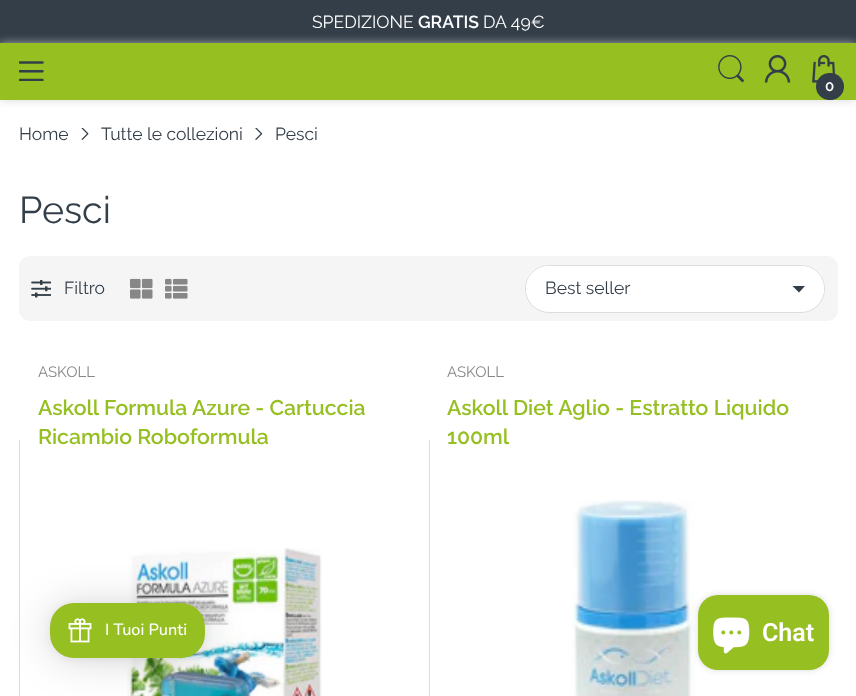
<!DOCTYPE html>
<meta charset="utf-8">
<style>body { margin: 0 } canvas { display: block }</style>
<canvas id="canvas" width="856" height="696"></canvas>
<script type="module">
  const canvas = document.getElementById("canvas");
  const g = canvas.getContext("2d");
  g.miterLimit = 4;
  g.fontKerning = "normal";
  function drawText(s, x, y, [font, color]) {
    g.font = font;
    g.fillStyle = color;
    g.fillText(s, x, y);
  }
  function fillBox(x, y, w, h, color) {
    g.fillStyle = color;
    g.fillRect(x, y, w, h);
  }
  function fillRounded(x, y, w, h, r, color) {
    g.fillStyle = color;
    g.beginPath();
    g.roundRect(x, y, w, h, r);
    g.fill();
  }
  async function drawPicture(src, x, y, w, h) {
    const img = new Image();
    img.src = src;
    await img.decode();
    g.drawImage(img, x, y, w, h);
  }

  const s1 = ["17.5px Raleway", "#FFFFFF"];
  const s2 = ["600 17.5px Raleway", "#FFFFFF"];
  const s3 = ["600 15px Raleway", "#FFFFFF"];
  const s4 = ["17.5px Raleway", "#333E48"];
  const s5 = ["37.5px Raleway", "#333E48"];
  const s6 = ["15px Raleway", "#878787"];
  const s7 = ["600 21.25px Raleway", "#96BF22"];
  const s8 = ["500 16.25px Nunito", "#FFFFFF"];
  const s9 = ["600 25px Roboto", "#FFFFFF"];

  fillBox(0, 0, 856, 696, "#FFFFFF");
  fillBox(0, 0, 856, 43, "#333E48");
  drawText("SPEDIZIONE", 312, 28, s1);
  drawText("GRATIS", 418, 28, s2);
  drawText("DA 49€", 483, 28, s1);
  g.fillStyle = "rgba(201, 201, 201, 0.75)";
  g.filter = "blur(5px)";
  g.beginPath();
  g.rect(0, 43, 856, 57);
  g.fill();
  g.filter = "none";
  fillBox(0, 43, 856, 57, "#96BF22");
  await drawPicture("pic1.png", 19, 61, 25, 20);
  await drawPicture("pic2.png", 718, 55, 27, 28);
  await drawPicture("pic3.png", 764, 55, 27, 28);
  await drawPicture("pic4.png", 812, 55, 24, 28);
  fillRounded(816, 73, 28, 27, 13.5, "#333E48");
  drawText("0", 825, 91, s3);
  drawText("Home", 19, 140, s4);
  await drawPicture("pic5.png", 81, 128, 8, 12);
  drawText("Tutte le collezioni", 101, 140, s4);
  await drawPicture("pic6.png", 255, 128, 8, 12);
  drawText("Pesci", 275, 140, s4);
  drawText("Pesci", 19, 223, s5);
  fillRounded(19, 256, 819, 65, 11, "#F5F5F5");
  await drawPicture("pic7.png", 31, 280, 20, 18);
  drawText("Filtro", 64, 294, s4);
  await drawPicture("pic8.png", 130, 278, 23, 21);
  await drawPicture("pic9.png", 165, 278, 23, 21);
  g.fillStyle = "#FFFFFF";
  g.beginPath();
  g.roundRect(525.5, 265.5, 299, 47, 23.5);
  g.fill();
  g.strokeStyle = "#DDDDDD";
  g.stroke();
  fillRounded(526, 266, 298, 45, 22.5, "#FFFFFF");
  drawText("Best seller", 545, 294, s4);
  g.beginPath();
  g.moveTo(792.5, 286);
  g.lineTo(799, 292.5);
  g.lineTo(805, 286);
  g.closePath();
  g.fill("evenodd");
  drawText("ASKOLL", 38, 377, s6);
  drawText("Askoll Formula Azure - Cartuccia", 38, 415, s7);
  drawText("Ricambio Roboformula", 38, 444, s7);
  await drawPicture("pic10.png", 127, 548, 195, 148);
  fillBox(19, 440, 1, 256, "#DDDDDD");
  drawText("ASKOLL", 447, 377, s6);
  drawText("Askoll Diet Aglio - Estratto Liquido", 447, 415, s7);
  drawText("100ml", 447, 444, s7);
  await drawPicture("pic11.png", 572, 500, 124, 196);
  fillBox(429, 440, 1, 256, "#DDDDDD");
  g.fillStyle = "rgba(0, 0, 0, 0.16)";
  g.filter = "blur(20px)";
  g.beginPath();
  g.roundRect(50, 605, 155, 55, 24);
  g.fill();
  g.filter = "none";
  g.fillStyle = "rgba(0, 0, 0, 0.06)";
  g.filter = "blur(4px)";
  g.beginPath();
  g.roundRect(50, 604, 155, 55, 24);
  g.fill();
  g.filter = "none";
  fillRounded(50, 603, 155, 55, 24, "#96BF22");
  await drawPicture("pic12.png", 68, 618, 24, 25);
  drawText("I Tuoi Punti", 105, 635, s8);
  g.fillStyle = "rgba(0, 0, 0, 0.15)";
  g.filter = "blur(3px)";
  g.beginPath();
  g.roundRect(698, 595, 131, 75, 20);
  g.fill();
  g.filter = "none";
  fillRounded(698, 595, 131, 75, 20, "#96BF22");
  await drawPicture("pic13.png", 713, 617, 37, 37);
  drawText("Chat", 762, 641, s9);
</script>
